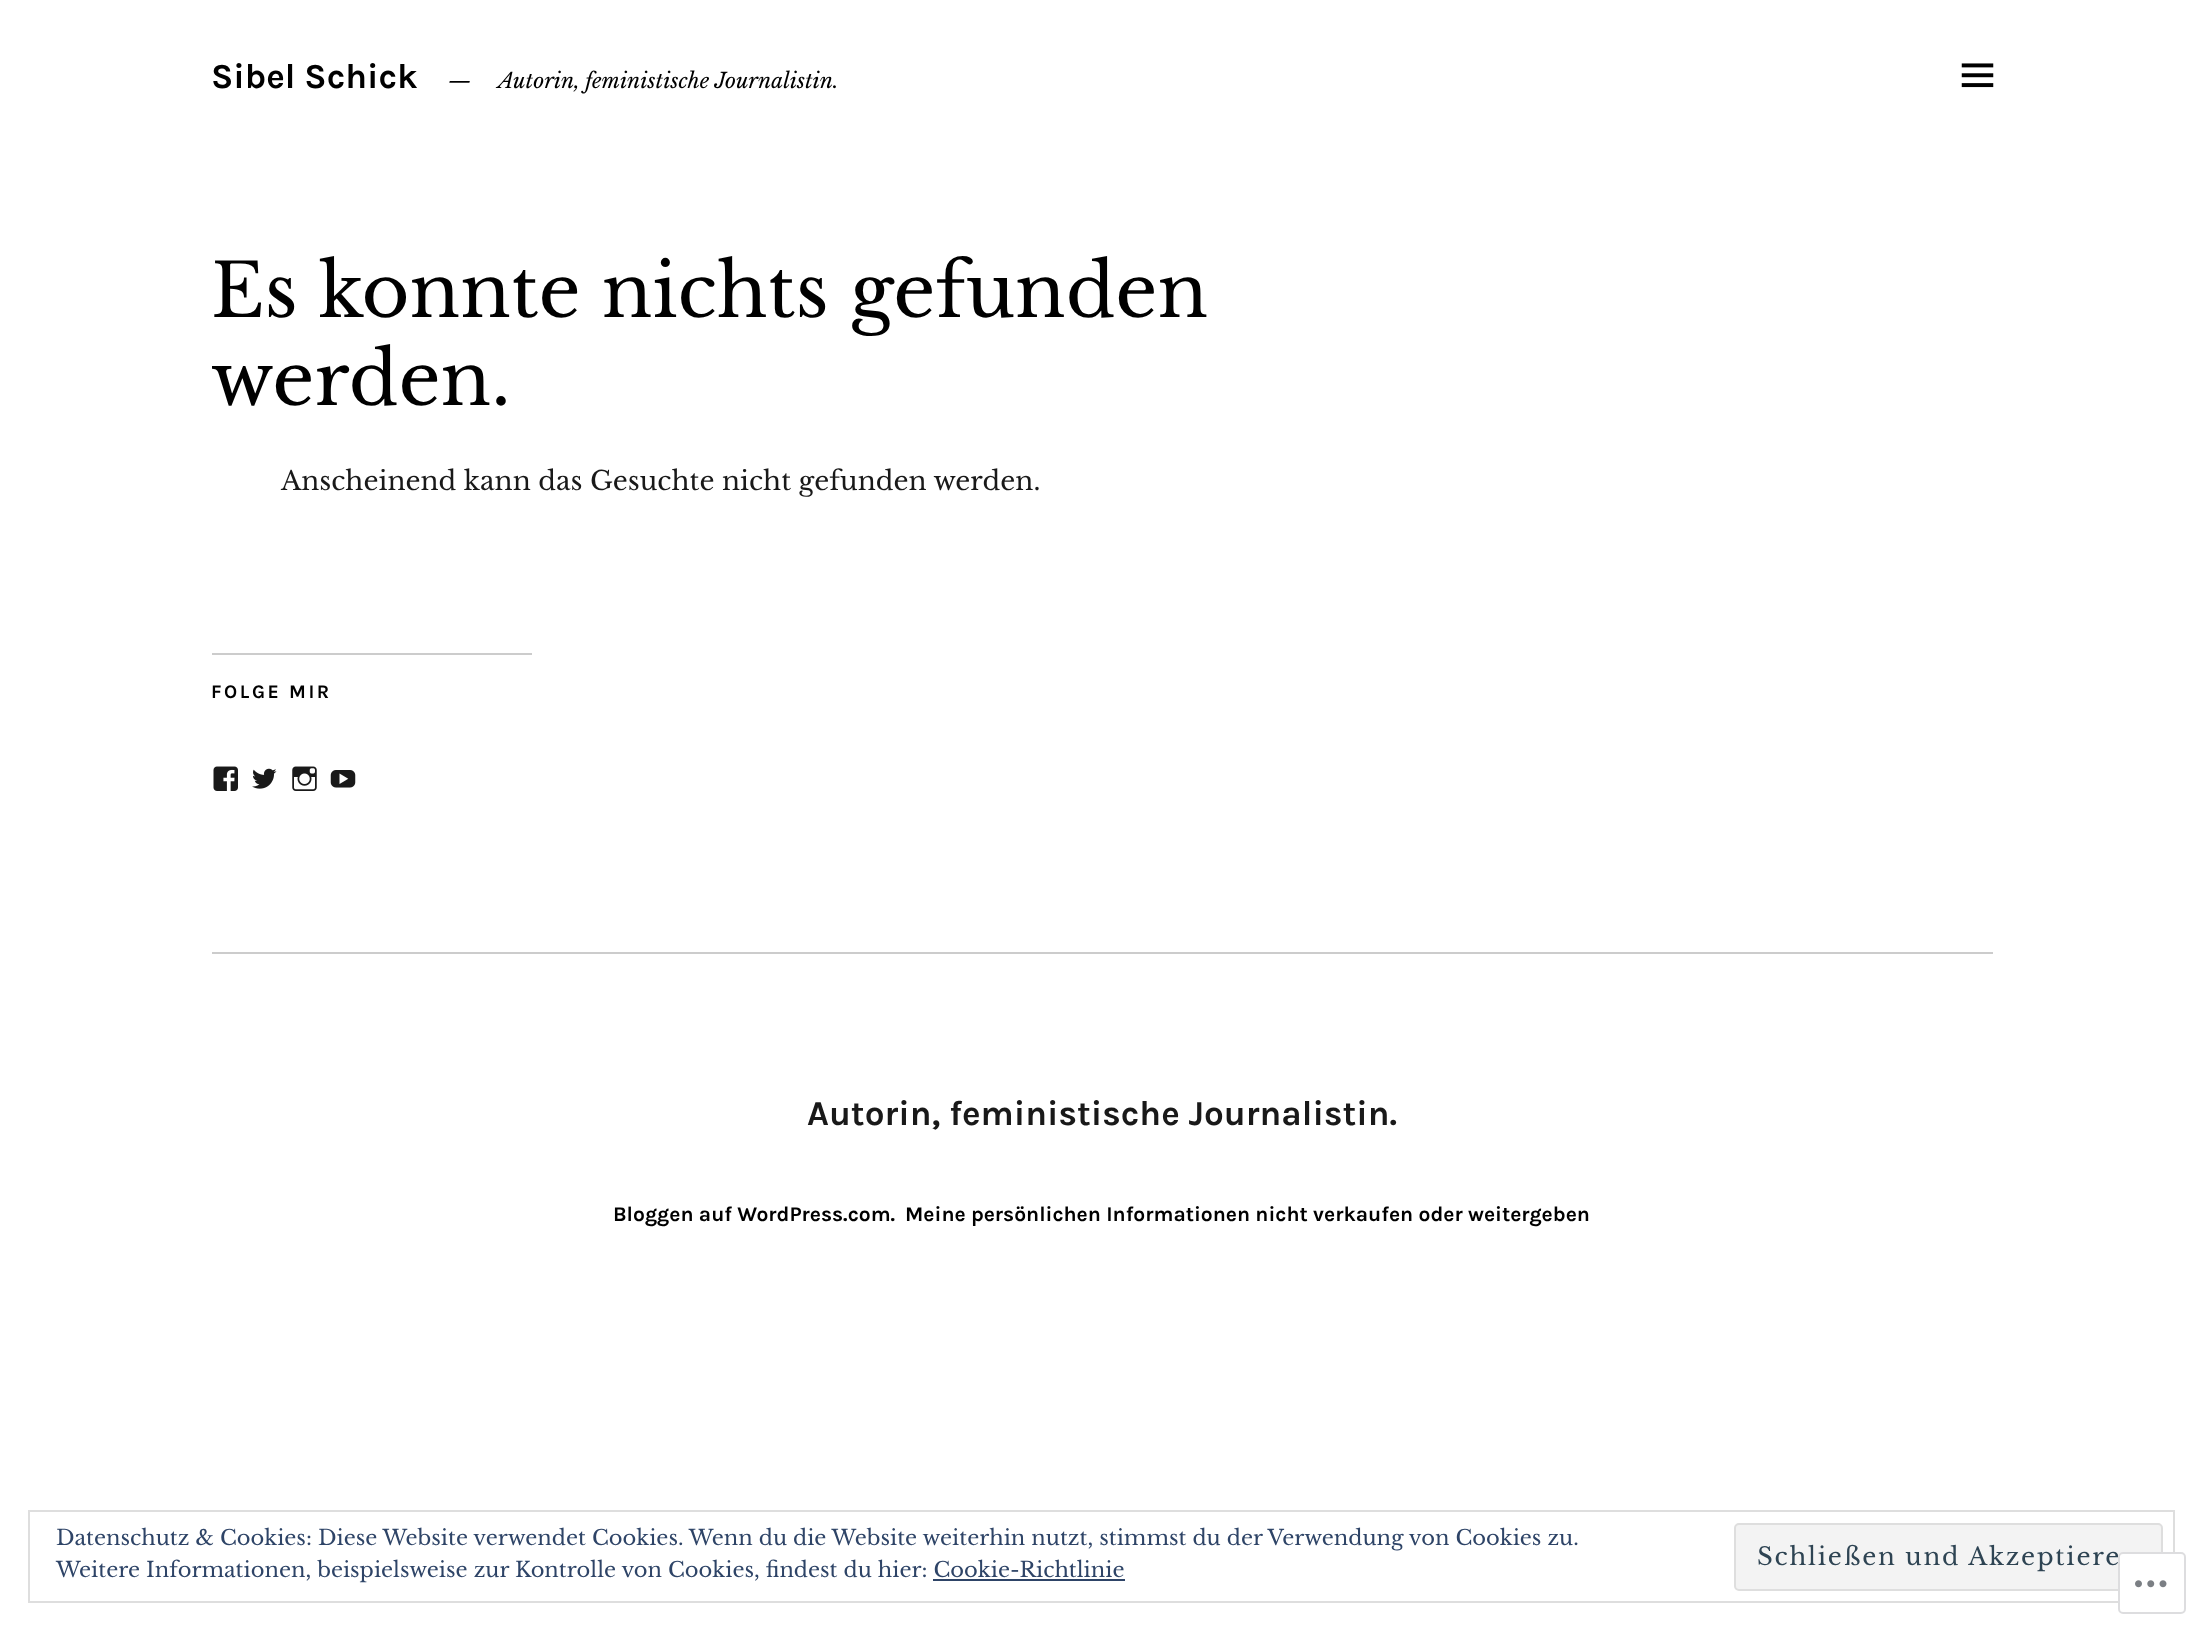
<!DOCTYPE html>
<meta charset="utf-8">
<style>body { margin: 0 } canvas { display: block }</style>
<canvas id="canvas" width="2203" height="1630"></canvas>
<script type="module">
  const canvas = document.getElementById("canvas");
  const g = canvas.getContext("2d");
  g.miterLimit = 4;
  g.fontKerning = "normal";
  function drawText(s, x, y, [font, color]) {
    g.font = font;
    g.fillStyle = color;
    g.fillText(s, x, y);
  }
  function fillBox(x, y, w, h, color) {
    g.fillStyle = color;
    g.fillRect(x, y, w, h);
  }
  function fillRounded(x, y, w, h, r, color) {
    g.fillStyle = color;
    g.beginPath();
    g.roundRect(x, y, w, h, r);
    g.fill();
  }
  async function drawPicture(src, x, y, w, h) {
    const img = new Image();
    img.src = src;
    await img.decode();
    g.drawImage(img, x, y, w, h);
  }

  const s1 = ["bold 35px Karla", "#000000"];
  const s2 = ["italic 21px Libre Baskerville", "#000000"];
  const s3 = ["73.5px Libre Baskerville", "#000000"];
  const s4 = ["26.25px Libre Baskerville", "#191919"];
  const s5 = ["bold 19.25px Karla", "#000000"];
  const s6 = ["bold 35px Karla", "#191919"];
  const s7 = ["bold 21px Karla", "#000000"];
  const s8 = ["21px Libre Baskerville", "#2E4467"];
  const s9 = ["24.5px Libre Baskerville", "#2E4453"];

  fillBox(0, 0, 2203, 1630, "#FFFFFF");
  drawText("Sibel Schick", 211, 88, s1);
  drawText("—", 448, 88, s2);
  drawText("Autorin, feministische Journalistin.", 498, 88, s2);
  await drawPicture("pic1.png", 1961, 63, 33, 25);
  drawText("Es konnte nichts gefunden", 211, 317, s3);
  g.save();
  g.beginPath();
  g.rect(212, 221, 1246, 432);
  g.clip();
  drawText("werden.", 211, 405, s3);
  g.restore();
  drawText("Anscheinend kann das Gesuchte nicht gefunden werden.", 281, 490, s4);
  fillBox(212, 653, 320, 2, "#CCCCCC");
  g.letterSpacing = "2.6px";
  drawText("FOLGE MIR", 211, 698, s5);
  await drawPicture("pic2.png", 213, 766, 25, 25);
  await drawPicture("pic3.png", 252, 768, 25, 21);
  await drawPicture("pic4.png", 292, 766, 25, 25);
  await drawPicture("pic5.png", 330, 770, 26, 18);
  fillBox(212, 952, 1781, 2, "#CCCCCC");
  g.letterSpacing = "0px";
  drawText("Autorin, feministische Journalistin.", 807, 1125, s6);
  drawText("Bloggen auf WordPress.com.", 613, 1221, s7);
  drawText("Meine persönlichen Informationen nicht verkaufen oder weitergeben", 905, 1221, s7);
  g.strokeStyle = "#DEDEDE";
  g.lineWidth = 2;
  g.strokeRect(29, 1511, 2145, 91);
  drawText("Datenschutz & Cookies: Diese Website verwendet Cookies. Wenn du die Website weiterhin nutzt, stimmst du der Verwendung von Cookies zu.", 56, 1545, s8);
  drawText("Weitere Informationen, beispielsweise zur Kontrolle von Cookies, findest du hier: Cookie-Richtlinie", 56, 1577, s8);
  g.fillStyle = "#F3F3F3";
  g.beginPath();
  g.roundRect(1735, 1524, 427, 66, 4);
  g.fill();
  g.stroke();
  g.letterSpacing = "1.75px";
  drawText("Schließen und Akzeptiere", 1757, 1565, s9);
  fillBox(933, 1579, 192, 2, "#2E4467");
  fillRounded(2118, 1552, 68, 62, 5, "rgba(255, 255, 255, 0.98)");
  g.beginPath();
  g.roundRect(2119, 1553, 66, 60, 4);
  g.strokeStyle = "rgba(220, 220, 222, 0.98)";
  g.stroke();
  await drawPicture("pic6.png", 2135, 1580, 32, 8);
</script>
